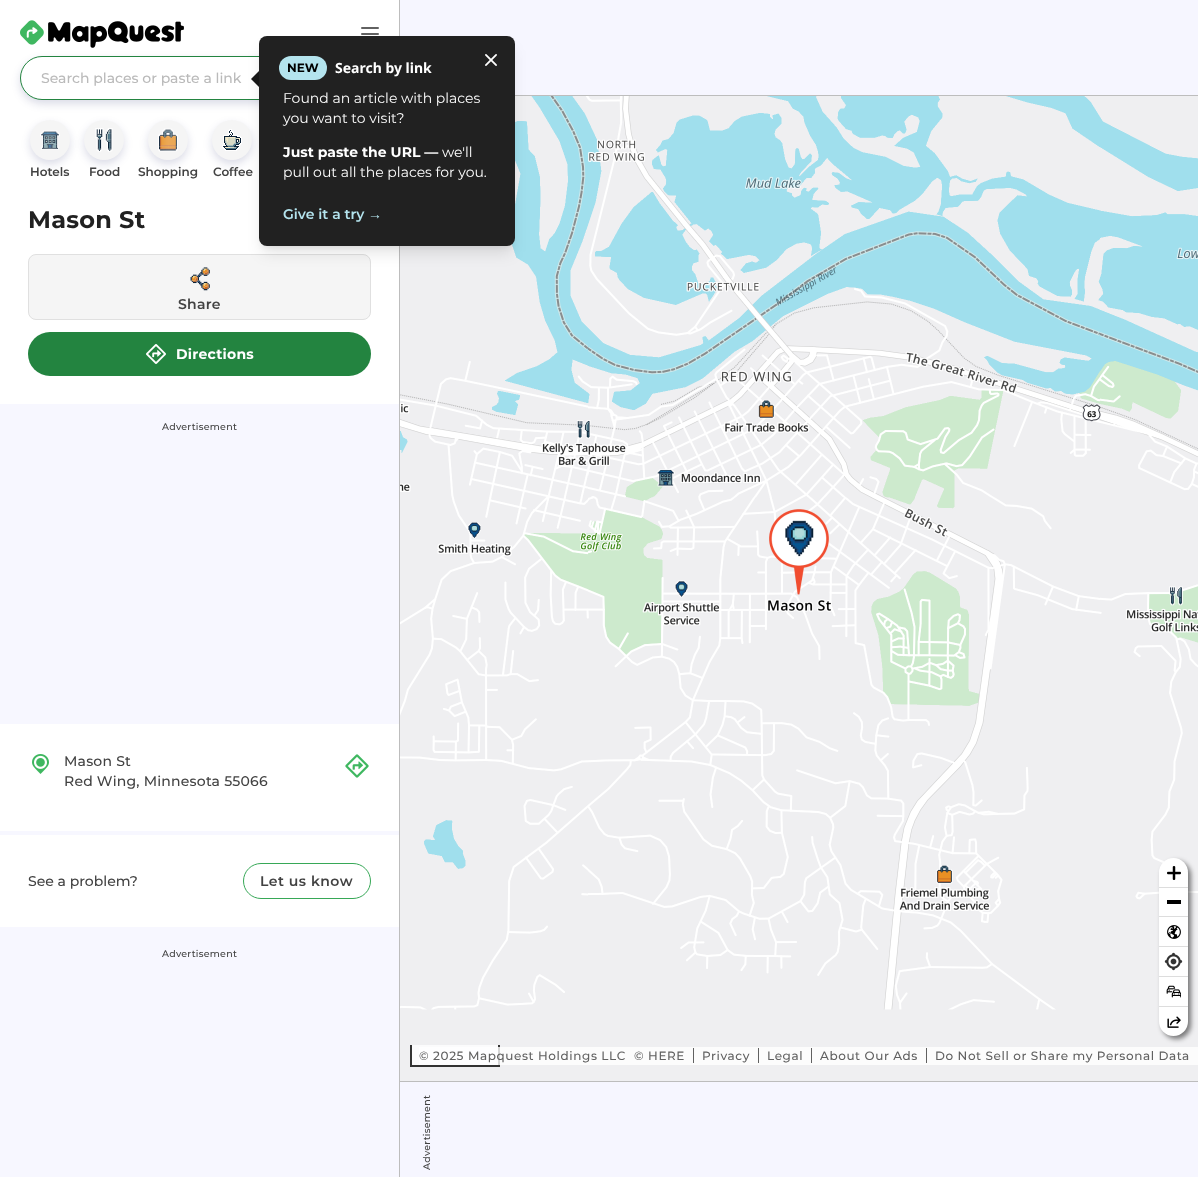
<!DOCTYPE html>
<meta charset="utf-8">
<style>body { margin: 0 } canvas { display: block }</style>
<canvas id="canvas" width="1198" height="1177"></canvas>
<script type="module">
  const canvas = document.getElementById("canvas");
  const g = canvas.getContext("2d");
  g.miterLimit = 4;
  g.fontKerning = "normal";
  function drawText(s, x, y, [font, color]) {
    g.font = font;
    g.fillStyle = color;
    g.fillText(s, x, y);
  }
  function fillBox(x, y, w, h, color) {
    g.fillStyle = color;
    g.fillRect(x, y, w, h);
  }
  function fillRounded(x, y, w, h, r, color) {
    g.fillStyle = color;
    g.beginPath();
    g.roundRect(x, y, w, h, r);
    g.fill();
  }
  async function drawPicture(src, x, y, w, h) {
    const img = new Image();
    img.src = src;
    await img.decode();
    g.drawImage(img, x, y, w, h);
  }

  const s1 = ["500 14px Montserrat", "#BABABA"];
  const s2 = ["bold 12px Montserrat", "#000000"];
  const s3 = ["bold 14px Noto Sans", "#FFFFFF"];
  const s4 = ["14px Montserrat", "#FFFFFF"];
  const s5 = ["bold 14px Montserrat", "#FFFFFF"];
  const s6 = ["600 14px Montserrat", "#B4E4EE"];
  const s7 = ["bold 14px Liberation Serif", "#B4E4EE"];
  const s8 = ["600 12px Montserrat", "#424242"];
  const s9 = ["bold 24px Montserrat", "#212121"];
  const s10 = ["600 14px Montserrat", "#424242"];
  const s11 = ["500 9.5px Montserrat", "#424242"];
  const s12 = ["500 14px Montserrat", "#424242"];
  const s13 = ["500 12px Montserrat", "#616161"];

  fillBox(0, 0, 1198, 1177, "#FFFFFF");
  fillBox(400, 0, 798, 95, "#F6F6FF");
  fillBox(515, 95, 683, 1, "#BDBDBD");
  fillBox(399, 0, 1, 1177, "#BDBDBD");
  await drawPicture("pic1.png", 20, 20, 164, 28);
  await drawPicture("pic2.png", 361, 27, 18, 8);
  g.fillStyle = "rgba(13, 22, 96, 0.15)";
  g.filter = "blur(4px)";
  g.beginPath();
  g.roundRect(20, 60, 359, 44, 22);
  g.fill();
  g.filter = "none";
  g.fillStyle = "#FFFFFF";
  g.beginPath();
  g.roundRect(20.5, 56.5, 358, 43, 21.5);
  g.fill();
  g.strokeStyle = "#238440";
  g.stroke();
  drawText("Search places or paste a link", 41, 83, s1);
  g.fillStyle = "#F5F5F5";
  g.beginPath();
  g.roundRect(28.5, 254.5, 342, 65, 7.5);
  g.fill();
  g.strokeStyle = "#E0E0E0";
  g.stroke();
  await drawPicture("pic12.png", 400, 96, 798, 985);
  g.fillStyle = "rgba(0, 0, 0, 0.1)";
  g.filter = "blur(3px)";
  g.beginPath();
  g.roundRect(263, 44, 248, 202, 4);
  g.fill();
  g.filter = "none";
  g.fillStyle = "rgba(13, 22, 96, 0.15)";
  g.filter = "blur(4px)";
  g.beginPath();
  g.roundRect(212, 124, 40, 40, 20);
  g.fill();
  g.filter = "none";
  g.fillStyle = "#F5F5F5";
  g.beginPath();
  g.arc(232, 140, 20, 0, Math.PI * 2);
  g.fill();
  await drawPicture("pic7.png", 222, 129, 20, 22);
  g.fillStyle = "rgba(0, 0, 0, 0.1)";
  g.filter = "blur(7.5px)";
  g.beginPath();
  g.roundRect(262, 49, 250, 204, 5);
  g.fill();
  g.filter = "none";
  fillRounded(259, 36, 256, 210, 8, "#212121");
  await drawPicture("pic3.png", 485, 54, 12, 12);
  g.fillStyle = "#171717";
  g.beginPath();
  g.moveTo(259, 71);
  g.lineTo(259, 87);
  g.lineTo(251, 79);
  g.closePath();
  g.fill();
  fillRounded(279, 56, 48, 24, 12, "#B4E4EE");
  drawText("NEW", 287, 72, s2);
  drawText("Search by link", 335, 73, s3);
  drawText("Found an article with places", 283, 103, s4);
  drawText("you want to visit?", 283, 123, s4);
  drawText("Just paste the URL —", 283, 157, s5);
  drawText("we'll", 442, 157, s4);
  drawText("pull out all the places for you.", 283, 177, s4);
  drawText("Give it a try", 283, 219, s6);
  drawText("→", 368, 219, s7);
  g.fillStyle = "rgba(13, 22, 96, 0.15)";
  g.filter = "blur(4px)";
  g.beginPath();
  g.roundRect(30, 124, 40, 40, 20);
  g.fill();
  g.filter = "none";
  g.fillStyle = "#F5F5F5";
  g.beginPath();
  g.arc(50, 140, 20, 0, Math.PI * 2);
  g.fill();
  await drawPicture("pic4.png", 40, 130, 20, 20);
  drawText("Hotels", 30, 176, s8);
  g.fillStyle = "rgba(13, 22, 96, 0.15)";
  g.filter = "blur(4px)";
  g.beginPath();
  g.roundRect(84, 124, 40, 40, 20);
  g.fill();
  g.filter = "none";
  g.fillStyle = "#F5F5F5";
  g.beginPath();
  g.arc(104, 140, 20, 0, Math.PI * 2);
  g.fill();
  await drawPicture("pic5.png", 95, 128, 18, 24);
  drawText("Food", 89, 176, s8);
  g.fillStyle = "rgba(13, 22, 96, 0.15)";
  g.filter = "blur(4px)";
  g.beginPath();
  g.roundRect(148, 124, 40, 40, 20);
  g.fill();
  g.filter = "none";
  g.fillStyle = "#F5F5F5";
  g.beginPath();
  g.arc(168, 140, 20, 0, Math.PI * 2);
  g.fill();
  await drawPicture("pic6.png", 158, 128, 20, 24);
  drawText("Shopping", 138, 176, s8);
  drawText("Coffee", 213, 176, s8);
  g.letterSpacing = "0.25px";
  drawText("Mason St", 28, 228, s9);
  await drawPicture("pic8.png", 190, 267, 20, 24);
  drawText("Share", 178, 309, s10);
  fillRounded(28, 332, 343, 44, 22, "#238440");
  await drawPicture("pic9.png", 146, 344, 20, 20);
  drawText("Directions", 176, 359, s5);
  fillBox(0, 404, 399, 320, "#F7F7FF");
  drawText("Advertisement", 162, 430, s11);
  fillBox(0, 831, 399, 4, "#F7F7FF");
  await drawPicture("pic10.png", 32, 754, 17, 20);
  g.letterSpacing = "0.2px";
  drawText("Mason St", 64, 766, s12);
  drawText("Red Wing, Minnesota 55066", 64, 786, s12);
  await drawPicture("pic11.png", 345, 754, 24, 24);
  fillBox(0, 927, 399, 250, "#F7F7FF");
  g.letterSpacing = "0px";
  drawText("See a problem?", 28, 886, s12);
  g.beginPath();
  g.roundRect(243.5, 863.5, 127, 35, 17.5);
  g.strokeStyle = "#37A857";
  g.stroke();
  g.letterSpacing = "0.5px";
  drawText("Let us know", 260, 886, s10);
  g.letterSpacing = "0.25px";
  drawText("Advertisement", 162, 957, s11);
  g.fillStyle = "rgba(0, 0, 0, 0.5)";
  g.filter = "blur(2.5px)";
  g.beginPath();
  g.roundRect(1162, 861, 29, 178, 14.5);
  g.fill();
  g.filter = "none";
  fillRounded(1159, 858, 29, 178, 14.5, "#FFFFFF");
  fillBox(1159, 916, 29, 1, "#DDDDDD");
  await drawPicture("pic13.png", 1167, 866, 14, 14);
  fillBox(1159, 887, 29, 1, "#DDDDDD");
  fillBox(1167, 900, 14, 4, "#000000");
  fillBox(1159, 946, 29, 1, "#DDDDDD");
  await drawPicture("pic14.png", 1167, 925, 14, 14);
  fillBox(1159, 976, 29, 1, "#DDDDDD");
  await drawPicture("pic15.png", 1164, 952, 19, 19);
  fillBox(1159, 1006, 29, 1, "#DDDDDD");
  await drawPicture("pic16.png", 1166, 985, 15, 13);
  await drawPicture("pic17.png", 1167, 1016, 14, 12);
  fillBox(412, 1045, 86, 20, "#FBFBFC");
  fillBox(498, 1045, 2, 22, "#333333");
  fillBox(410, 1065, 90, 2, "#333333");
  fillBox(410, 1045, 2, 22, "#333333");
  fillBox(419, 1047, 779, 18, "rgba(255, 255, 255, 0.8)");
  g.letterSpacing = "0.6px";
  drawText("© 2025 Mapquest Holdings LLC", 419, 1060, s13);
  fillBox(693, 1048, 1, 15, "#616161");
  drawText("© HERE", 634, 1060, s13);
  fillBox(758, 1048, 1, 15, "#616161");
  drawText("Privacy", 702, 1060, s13);
  fillBox(811, 1048, 1, 15, "#616161");
  drawText("Legal", 767, 1060, s13);
  fillBox(926, 1048, 1, 15, "#616161");
  drawText("About Our Ads", 820, 1060, s13);
  drawText("Do Not Sell or Share my Personal Data", 935, 1060, s13);
  fillBox(400, 1082, 798, 95, "#F6F6FF");
  fillBox(400, 1081, 798, 1, "#BDBDBD");
  g.letterSpacing = "0.25px";
  g.font = "500 9.5px Montserrat";
  g.fillStyle = "#424242";
  g.save();
  g.translate(430, 1170);
  g.rotate(-90 * Math.PI / 180);
  g.fillText("Advertisement", 0, 0);
  g.restore();
</script>
